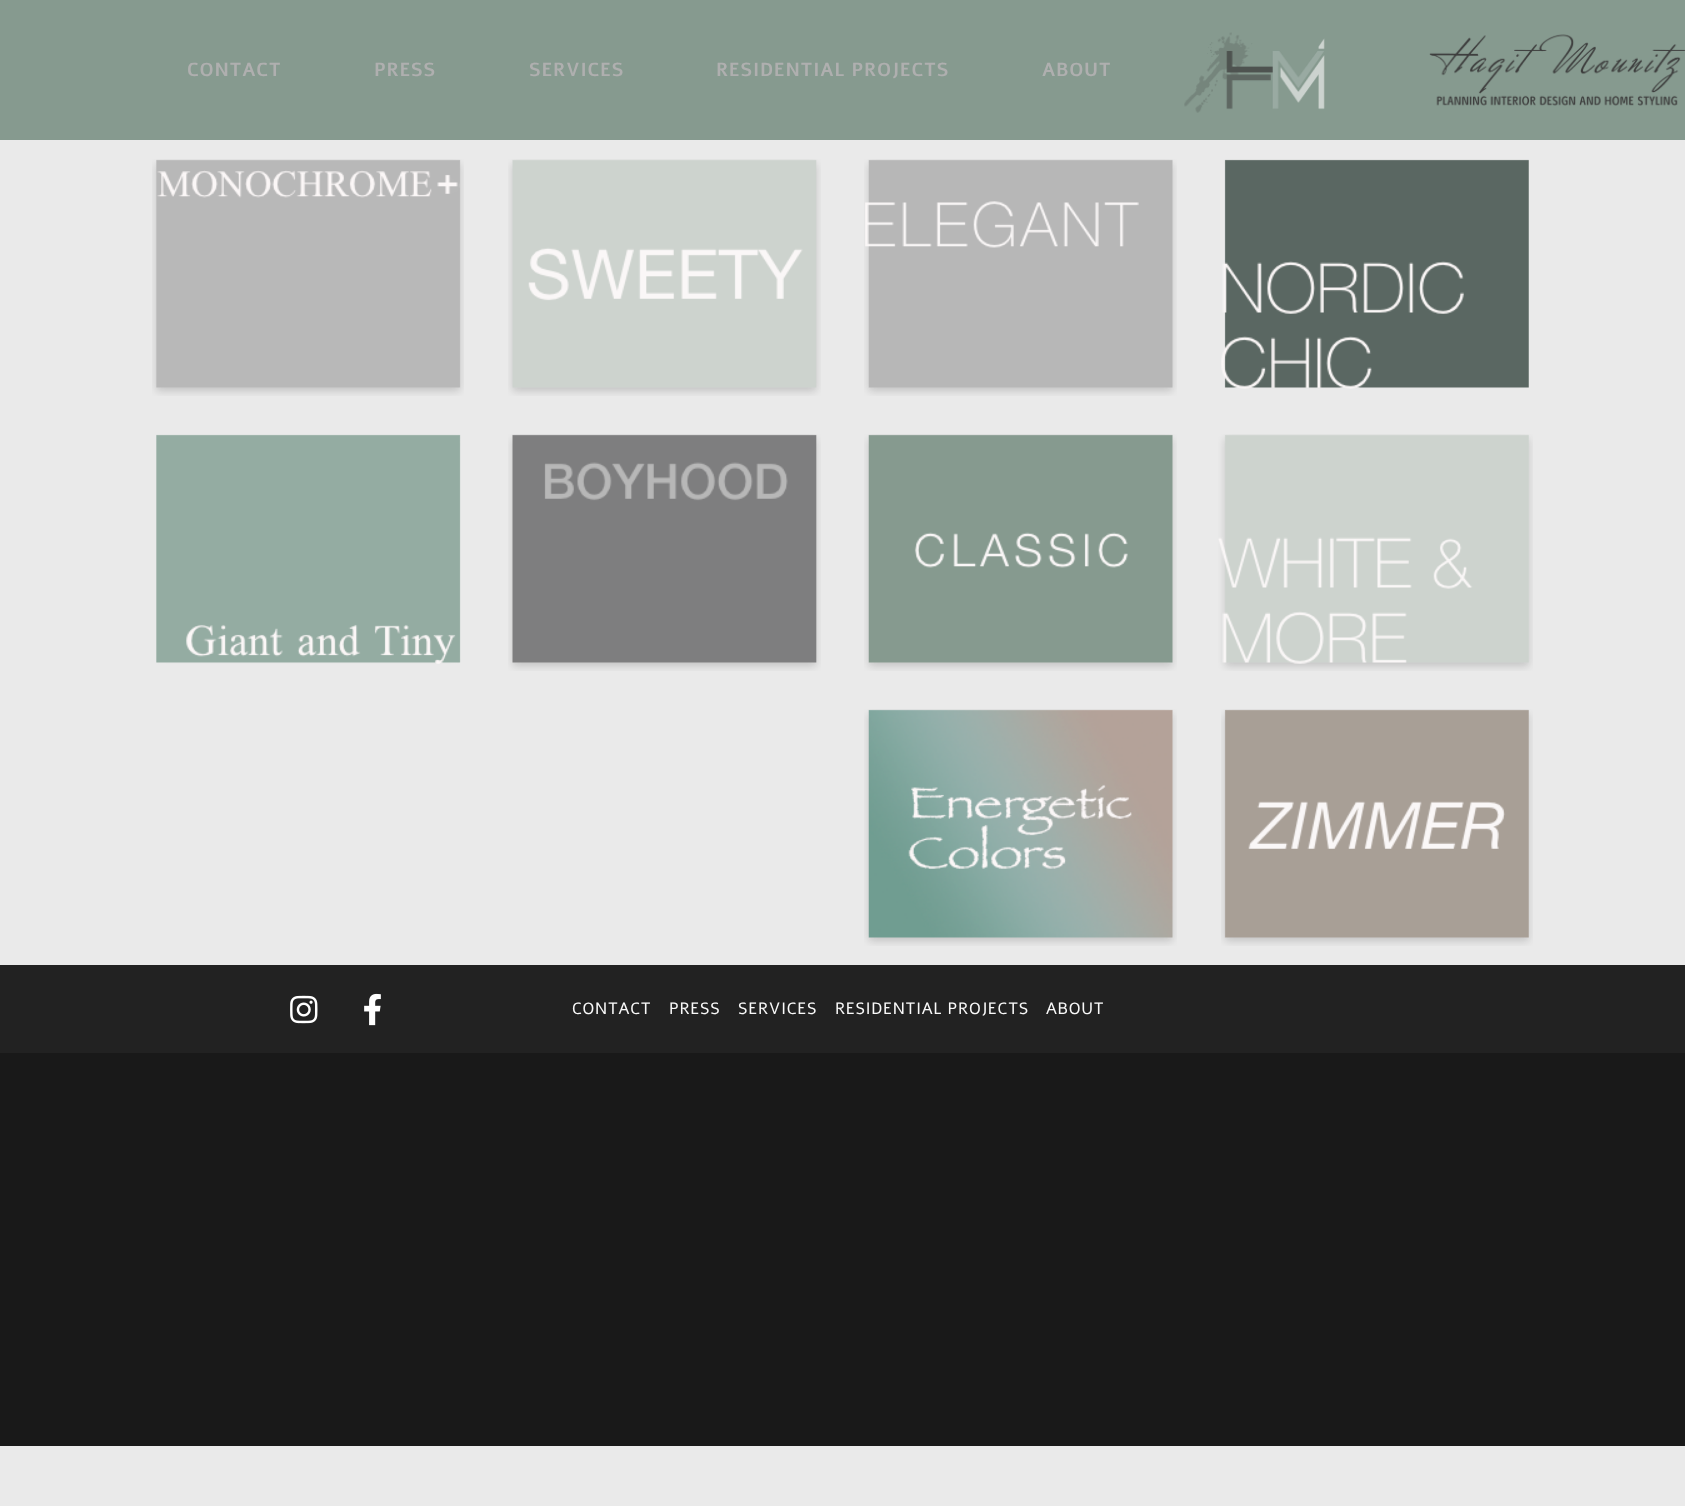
<!DOCTYPE html>
<meta charset="utf-8">
<style>body { margin: 0 } canvas { display: block }</style>
<canvas id="canvas" width="1685" height="1506"></canvas>
<script type="module">
  const canvas = document.getElementById("canvas");
  const g = canvas.getContext("2d");
  g.miterLimit = 4;
  g.fontKerning = "normal";
  function drawText(s, x, y, [font, color]) {
    g.font = font;
    g.fillStyle = color;
    g.fillText(s, x, y);
  }
  function fillBox(x, y, w, h, color) {
    g.fillStyle = color;
    g.fillRect(x, y, w, h);
  }
  async function drawPicture(src, x, y, w, h) {
    const img = new Image();
    img.src = src;
    await img.decode();
    g.drawImage(img, x, y, w, h);
  }

  const s1 = ["bold 18.75px Alef", "#AFAFAF"];
  const s2 = ["16.25px Alef", "#F9F9F9"];

  fillBox(0, 0, 1685, 1506, "#EAEAEA");
  fillBox(0, 0, 1685, 140, "#869A8F");
  g.letterSpacing = "0.75px";
  drawText("CONTACT", 187, 76, s1);
  drawText("PRESS", 374, 76, s1);
  drawText("SERVICES", 529, 76, s1);
  drawText("RESIDENTIAL PROJECTS", 716, 76, s1);
  drawText("ABOUT", 1042, 76, s1);
  await drawPicture("pic1.png", 1184, 32, 501, 81);
  await drawPicture("pic2.png", 152, 159, 312, 237);
  await drawPicture("pic3.png", 508, 159, 313, 237);
  await drawPicture("pic4.png", 864, 159, 313, 237);
  await drawPicture("pic5.png", 1221, 159, 308, 230);
  await drawPicture("pic6.png", 156, 434, 305, 230);
  await drawPicture("pic7.png", 508, 434, 313, 237);
  await drawPicture("pic8.png", 864, 434, 313, 237);
  await drawPicture("pic9.png", 1218, 434, 315, 237);
  await drawPicture("pic10.png", 864, 709, 313, 237);
  await drawPicture("pic11.png", 1221, 709, 312, 237);
  fillBox(0, 965, 1685, 88, "#222222");
  await drawPicture("pic12.png", 290, 995, 28, 29);
  await drawPicture("pic13.png", 364, 993, 17, 33);
  drawText("CONTACT", 572, 1014, s2);
  drawText("PRESS", 669, 1014, s2);
  drawText("SERVICES", 738, 1014, s2);
  drawText("RESIDENTIAL PROJECTS", 835, 1014, s2);
  drawText("ABOUT", 1046, 1014, s2);
  fillBox(0, 1053, 1685, 393, "#191919");
</script>
